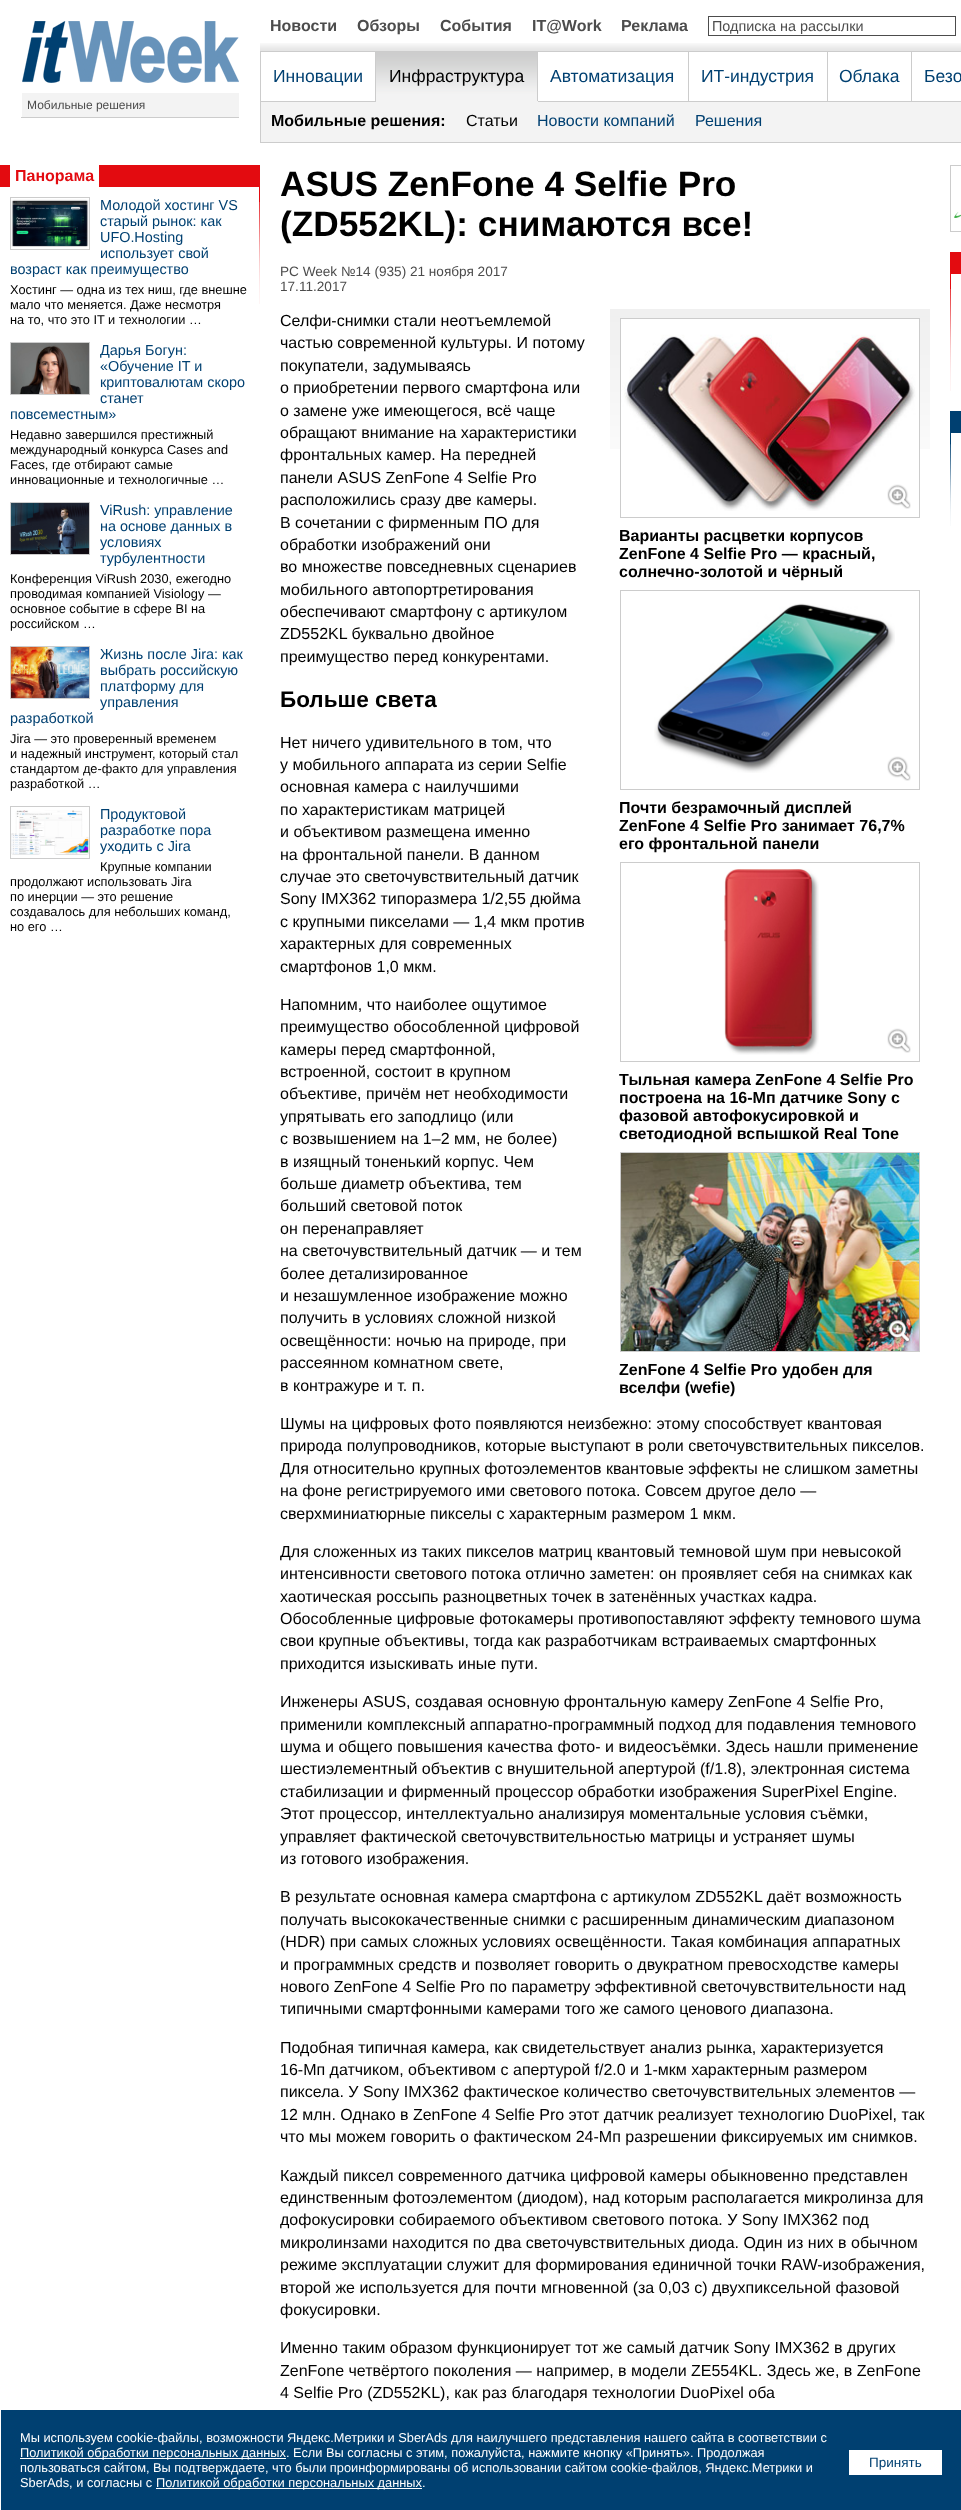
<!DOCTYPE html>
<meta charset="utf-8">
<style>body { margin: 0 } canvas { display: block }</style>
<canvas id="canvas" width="961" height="2510"></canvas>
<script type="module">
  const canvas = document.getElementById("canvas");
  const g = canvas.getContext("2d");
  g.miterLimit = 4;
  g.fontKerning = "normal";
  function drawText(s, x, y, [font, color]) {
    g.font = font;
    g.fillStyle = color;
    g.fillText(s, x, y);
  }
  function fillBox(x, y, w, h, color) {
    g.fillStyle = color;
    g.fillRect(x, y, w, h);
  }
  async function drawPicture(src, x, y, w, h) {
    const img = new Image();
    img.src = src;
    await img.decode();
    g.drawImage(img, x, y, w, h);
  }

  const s1 = ["12px Liberation Sans", "#4C4C4C"];
  const s2 = ["bold 16px Liberation Sans", "#4C4C4C"];
  const s3 = ["14.4px Liberation Sans", "#4C4C4C"];
  const s4 = ["17.5px Liberation Sans", "#004071"];
  const s5 = ["17.5px Liberation Sans", "#000000"];
  const s6 = ["bold 16px Liberation Sans", "#000000"];
  const s7 = ["16px Liberation Sans", "#000000"];
  const s8 = ["16px Liberation Sans", "#004071"];
  const s9 = ["bold 16px Liberation Sans", "#E30B10"];
  const s10 = ["14.4px Liberation Sans", "#004071"];
  const s11 = ["12.8px Liberation Sans", "#000000"];
  const s12 = ["bold 35.25px Liberation Sans", "#000000"];
  const s13 = ["13.6px Liberation Sans", "#4C4C4C"];
  const s14 = ["bold 22.5px Liberation Sans", "#000000"];
  const s15 = ["12.8px Liberation Sans", "#FFFFFF"];
  const s16 = ["13.5px Liberation Sans", "#004071"];

  fillBox(0, 0, 961, 2510, "#FFFFFF");
  await drawPicture("pic1.png", 22, 21, 217, 62);
  fillBox(22, 93, 217, 24, "#F3F3F3");
  fillBox(21, 117, 218, 1, "#CCCCCC");
  drawText("Мобильные решения", 27, 109, s1);
  await drawPicture("pic2.png", 260, 43, 701, 8);
  drawText("Новости", 270, 31, s2);
  drawText("Обзоры", 357, 31, s2);
  drawText("События", 440, 31, s2);
  drawText("IT@Work", 532, 31, s2);
  drawText("Реклама", 621, 31, s2);
  g.strokeStyle = "#4C4C4C";
  g.strokeRect(708.5, 16.5, 247, 19);
  drawText("Подписка на рассылки", 712, 31, s3);
  fillBox(911, 51, 50, 1, "#CCCCCC");
  fillBox(260, 101, 701, 1, "#CCCCCC");
  fillBox(911, 51, 1, 51, "#CCCCCC");
  fillBox(827, 51, 85, 1, "#CCCCCC");
  fillBox(827, 51, 1, 51, "#CCCCCC");
  fillBox(688, 51, 140, 1, "#CCCCCC");
  fillBox(688, 51, 1, 51, "#CCCCCC");
  fillBox(537, 51, 152, 1, "#CCCCCC");
  fillBox(537, 51, 1, 51, "#CCCCCC");
  fillBox(375, 51, 163, 1, "#CCCCCC");
  fillBox(375, 101, 163, 1, "#F3F3F3");
  fillBox(375, 51, 1, 51, "#CCCCCC");
  fillBox(260, 51, 116, 1, "#CCCCCC");
  fillBox(260, 142, 701, 1, "#CCCCCC");
  fillBox(260, 101, 1, 42, "#CCCCCC");
  fillBox(260, 51, 1, 51, "#CCCCCC");
  drawText("Инновации", 273, 82, s4);
  await drawPicture("pic3.png", 376, 52, 161, 49);
  drawText("Инфраструктура", 389, 82, s5);
  drawText("Автоматизация", 550, 82, s4);
  drawText("ИТ-индустрия", 701, 82, s4);
  drawText("Облака", 839, 82, s4);
  drawText("Безо", 924, 82, s4);
  fillBox(261, 102, 700, 40, "#F3F3F3");
  drawText("Мобильные решения:", 271, 126, s6);
  drawText("Статьи", 466, 126, s7);
  drawText("Новости компаний", 537, 126, s8);
  drawText("Решения", 695, 126, s8);
  fillBox(0, 165, 260, 22, "#E30B10");
  fillBox(10, 165, 89, 22, "#FFFFFF");
  drawText("Панорама", 15, 181, s9);
  g.strokeStyle = "#CCCCCC";
  g.strokeRect(10.5, 197.5, 79, 52);
  await drawPicture("pic4.png", 11, 199, 78, 48);
  drawText("Молодой хостинг VS", 100, 210, s10);
  drawText("старый рынок: как", 100, 226, s10);
  drawText("UFO.Hosting", 100, 242, s10);
  drawText("использует свой", 100, 258, s10);
  drawText("возраст как преимущество", 10, 274, s10);
  drawText("Хостинг — одна из тех ниш, где внешне", 10, 294, s11);
  drawText("мало что меняется. Даже несмотря", 10, 309, s11);
  drawText("на то, что это IT и технологии …", 10, 324, s11);
  g.strokeRect(10.5, 342.5, 79, 52);
  await drawPicture("pic5.png", 11, 343, 78, 51);
  drawText("Дарья Богун:", 100, 355, s10);
  drawText("«Обучение IT и", 100, 371, s10);
  drawText("криптовалютам скоро", 100, 387, s10);
  drawText("станет", 100, 403, s10);
  drawText("повсеместным»", 10, 419, s10);
  drawText("Недавно завершился престижный", 10, 439, s11);
  drawText("международный конкурса Cases and", 10, 454, s11);
  drawText("Faсes, где отбирают самые", 10, 469, s11);
  drawText("инновационные и технологичные …", 10, 484, s11);
  g.strokeRect(10.5, 502.5, 79, 52);
  await drawPicture("pic6.png", 11, 503, 78, 51);
  drawText("ViRush: управление", 100, 515, s10);
  drawText("на основе данных в", 100, 531, s10);
  drawText("условиях", 100, 547, s10);
  drawText("турбулентности", 100, 563, s10);
  drawText("Конференция ViRush 2030, ежегодно", 10, 583, s11);
  drawText("проводимая компанией Visiology —", 10, 598, s11);
  drawText("основное событие в сфере BI на", 10, 613, s11);
  drawText("российском …", 10, 628, s11);
  g.strokeRect(10.5, 646.5, 79, 52);
  await drawPicture("pic7.png", 11, 647, 78, 51);
  drawText("Жизнь после Jira: как", 100, 659, s10);
  drawText("выбрать российскую", 100, 675, s10);
  drawText("платформу для", 100, 691, s10);
  drawText("управления", 100, 707, s10);
  drawText("разработкой", 10, 723, s10);
  drawText("Jira — это проверенный временем", 10, 743, s11);
  drawText("и надежный инструмент, который стал", 10, 758, s11);
  drawText("стандартом де-факто для управления", 10, 773, s11);
  drawText("разработкой …", 10, 788, s11);
  g.strokeRect(10.5, 806.5, 79, 52);
  await drawPicture("pic8.png", 11, 810, 78, 45);
  drawText("Продуктовой", 100, 819, s10);
  drawText("разработке пора", 100, 835, s10);
  drawText("уходить с Jira", 100, 851, s10);
  drawText("Крупные компании", 100, 871, s11);
  drawText("продолжают использовать Jira", 10, 886, s11);
  drawText("по инерции — это решение", 10, 901, s11);
  drawText("создавалось для небольших команд,", 10, 916, s11);
  drawText("но его …", 10, 931, s11);
  await drawPicture("pic9.png", 259, 187, 1, 117);
  drawText("ASUS ZenFone 4 Selfie Pro", 280, 196, s12);
  drawText("(ZD552KL): снимаются все!", 280, 236, s12);
  drawText("PC Week №14 (935) 21 ноября 2017", 280, 276, s13);
  drawText("17.11.2017", 280, 291, s13);
  drawText("Селфи-снимки стали неотъемлемой", 280, 326, s7);
  drawText("частью современной культуры. И потому", 280, 348, s7);
  drawText("покупатели, задумываясь", 280, 371, s7);
  drawText("о приобретении первого смартфона или", 280, 393, s7);
  drawText("о замене уже имеющегося, всё чаще", 280, 416, s7);
  drawText("обращают внимание на характеристики", 280, 438, s7);
  drawText("фронтальных камер. На передней", 280, 460, s7);
  drawText("панели ASUS ZenFone 4 Selfie Pro", 280, 483, s7);
  drawText("расположились сразу две камеры.", 280, 505, s7);
  drawText("В сочетании с фирменным ПО для", 280, 528, s7);
  drawText("обработки изображений они", 280, 550, s7);
  drawText("во множестве повседневных сценариев", 280, 572, s7);
  drawText("мобильного автопортретирования", 280, 595, s7);
  drawText("обеспечивают смартфону с артикулом", 280, 617, s7);
  drawText("ZD552KL буквально двойное", 280, 639, s7);
  drawText("преимущество перед конкурентами.", 280, 662, s7);
  drawText("Больше света", 280, 707, s14);
  drawText("Нет ничего удивительного в том, что", 280, 748, s7);
  drawText("у мобильного аппарата из серии Selfie", 280, 770, s7);
  drawText("основная камера с наилучшими", 280, 792, s7);
  drawText("по характеристикам матрицей", 280, 815, s7);
  drawText("и объективом размещена именно", 280, 837, s7);
  drawText("на фронтальной панели. В данном", 280, 860, s7);
  drawText("случае это светочувствительный датчик", 280, 882, s7);
  drawText("Sony IMX362 типоразмера 1/2,55 дюйма", 280, 904, s7);
  drawText("с крупными пикселами — 1,4 мкм против", 280, 927, s7);
  drawText("характерных для современных", 280, 949, s7);
  drawText("смартфонов 1,0 мкм.", 280, 972, s7);
  drawText("Напомним, что наиболее ощутимое", 280, 1010, s7);
  drawText("преимущество обособленной цифровой", 280, 1032, s7);
  drawText("камеры перед смартфонной,", 280, 1055, s7);
  drawText("встроенной, состоит в крупном", 280, 1077, s7);
  drawText("объективе, причём нет необходимости", 280, 1099, s7);
  drawText("упрятывать его заподлицо (или", 280, 1122, s7);
  drawText("с возвышением на 1–2 мм, не более)", 280, 1144, s7);
  drawText("в изящный тоненький корпус. Чем", 280, 1167, s7);
  drawText("больше диаметр объектива, тем", 280, 1189, s7);
  drawText("больший световой поток", 280, 1211, s7);
  drawText("он перенаправляет", 280, 1234, s7);
  drawText("на светочувствительный датчик — и тем", 280, 1256, s7);
  drawText("более детализированное", 280, 1279, s7);
  drawText("и незашумленное изображение можно", 280, 1301, s7);
  drawText("получить в условиях сложной низкой", 280, 1323, s7);
  drawText("освещённости: ночью на природе, при", 280, 1346, s7);
  drawText("рассеянном комнатном свете,", 280, 1368, s7);
  drawText("в контражуре и т. п.", 280, 1391, s7);
  drawText("Шумы на цифровых фото появляются неизбежно: этому способствует квантовая", 280, 1429, s7);
  drawText("природа полупроводников, которые выступают в роли светочувствительных пикселов.", 280, 1451, s7);
  drawText("Для относительно крупных фотоэлементов квантовые эффекты не слишком заметны", 280, 1474, s7);
  drawText("на фоне регистрируемого ими светового потока. Совсем другое дело —", 280, 1496, s7);
  drawText("сверхминиатюрные пикселы с характерным размером 1 мкм.", 280, 1519, s7);
  drawText("Для сложенных из таких пикселов матриц квантовый темновой шум при невысокой", 280, 1557, s7);
  drawText("интенсивности светового потока отлично заметен: он проявляет себя на снимках как", 280, 1579, s7);
  drawText("хаотическая россыпь разноцветных точек в затенённых участках кадра.", 280, 1602, s7);
  drawText("Обособленные цифровые фотокамеры противопоставляют эффекту темнового шума", 280, 1624, s7);
  drawText("свои крупные объективы, тогда как разработчикам встраиваемых смартфонных", 280, 1646, s7);
  drawText("приходится изыскивать иные пути.", 280, 1669, s7);
  drawText("Инженеры ASUS, создавая основную фронтальную камеру ZenFone 4 Selfie Pro,", 280, 1707, s7);
  drawText("применили комплексный аппаратно-программный подход для подавления темнового", 280, 1730, s7);
  drawText("шума и общего повышения качества фото- и видеосъёмки. Здесь нашли применение", 280, 1752, s7);
  drawText("шестиэлементный объектив с внушительной апертурой (f/1.8), электронная система", 280, 1774, s7);
  drawText("стабилизации и фирменный процессор обработки изображения SuperPixel Engine.", 280, 1797, s7);
  drawText("Этот процессор, интеллектуально анализируя моментальные условия съёмки,", 280, 1819, s7);
  drawText("управляет фактической светочувствительностью матрицы и устраняет шумы", 280, 1842, s7);
  drawText("из готового изображения.", 280, 1864, s7);
  drawText("В результате основная камера смартфона с артикулом ZD552KL даёт возможность", 280, 1902, s7);
  drawText("получать высококачественные снимки с расширенным динамическим диапазоном", 280, 1925, s7);
  drawText("(HDR) при самых сложных условиях освещённости. Такая комбинация аппаратных", 280, 1947, s7);
  drawText("и программных средств и позволяет говорить о двукратном превосходстве камеры", 280, 1970, s7);
  drawText("нового ZenFone 4 Selfie Pro по параметру эффективной светочувствительности над", 280, 1992, s7);
  drawText("типичными смартфонными камерами того же самого ценового диапазона.", 280, 2014, s7);
  drawText("Подобная типичная камера, как свидетельствует анализ рынка, характеризуется", 280, 2053, s7);
  drawText("16-Мп датчиком, объективом с апертурой f/2.0 и 1-мкм характерным размером", 280, 2075, s7);
  drawText("пиксела. У Sony IMX362 фактическое количество светочувствительных элементов —", 280, 2097, s7);
  drawText("12 млн. Однако в ZenFone 4 Selfie Pro этот датчик реализует технологию DuoPixel, так", 280, 2120, s7);
  drawText("что мы можем говорить о фактическом 24-Мп разрешении фиксируемых им снимков.", 280, 2142, s7);
  drawText("Каждый пиксел современного датчика цифровой камеры обыкновенно представлен", 280, 2181, s7);
  drawText("единственным фотоэлементом (диодом), над которым располагается микролинза для", 280, 2203, s7);
  drawText("дофокусировки собираемого объективом светового потока. У Sony IMX362 под", 280, 2225, s7);
  drawText("микролинзами находится по два светочувствительных диода. Один из них в обычном", 280, 2248, s7);
  drawText("режиме эксплуатации служит для формирования единичной точки RAW-изображения,", 280, 2270, s7);
  drawText("второй же используется для почти мгновенной (за 0,03 с) двухпиксельной фазовой", 280, 2293, s7);
  drawText("фокусировки.", 280, 2315, s7);
  drawText("Именно таким образом функционирует тот же самый датчик Sony IMX362 в других", 280, 2353, s7);
  drawText("ZenFone четвёртого поколения — например, в модели ZE554KL. Здесь же, в ZenFone", 280, 2376, s7);
  drawText("4 Selfie Pro (ZD552KL), как раз благодаря технологии DuoPixel оба", 280, 2398, s7);
  await drawPicture("pic10.png", 610, 309, 320, 140);
  g.strokeRect(620.5, 318.5, 299, 199);
  await drawPicture("pic11.png", 621, 319, 298, 192);
  await drawPicture("pic12.png", 887, 484, 24, 25);
  drawText("Варианты расцветки корпусов", 619, 541, s6);
  drawText("ZenFone 4 Selfie Pro — красный,", 619, 559, s6);
  drawText("солнечно-золотой и чёрный", 619, 577, s6);
  g.strokeRect(620.5, 590.5, 299, 199);
  await drawPicture("pic13.png", 654, 603, 241, 170);
  await drawPicture("pic12.png", 887, 756, 24, 25);
  drawText("Почти безрамочный дисплей", 619, 813, s6);
  drawText("ZenFone 4 Selfie Pro занимает 76,7%", 619, 831, s6);
  drawText("его фронтальной панели", 619, 849, s6);
  g.strokeRect(620.5, 862.5, 299, 199);
  await drawPicture("pic14.png", 724, 869, 95, 186);
  await drawPicture("pic12.png", 887, 1028, 24, 25);
  drawText("Тыльная камера ZenFone 4 Selfie Pro", 619, 1085, s6);
  drawText("построена на 16-Мп датчике Sony с", 619, 1103, s6);
  drawText("фазовой автофокусировкой и", 619, 1121, s6);
  drawText("светодиодной вспышкой Real Tone", 619, 1139, s6);
  g.strokeRect(620.5, 1152.5, 299, 199);
  await drawPicture("pic15.png", 621, 1153, 298, 198);
  await drawPicture("pic16.png", 887, 1318, 24, 25);
  drawText("ZenFone 4 Selfie Pro удобен для", 619, 1375, s6);
  drawText("вселфи (wefie)", 619, 1393, s6);
  g.strokeRect(950.5, 165.5, 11, 66);
  await drawPicture("pic17.png", 951, 166, 10, 57);
  fillBox(950, 252, 11, 22, "#E30B10");
  await drawPicture("pic9.png", 950, 274, 1, 117);
  fillBox(950, 411, 11, 22, "#004071");
  await drawPicture("pic18.png", 950, 433, 1, 93);
  fillBox(1, 2410, 960, 100, "#004071");
  drawText("Мы используем cookie-файлы, возможности Яндекс.Метрики и SberAds для наилучшего представления нашего сайта в соответствии с", 20, 2442, s15);
  fillBox(20, 2458, 266, 1, "#FFFFFF");
  drawText("Политикой обработки персональных данных. Если Вы согласны с этим, пожалуйста, нажмите кнопку «Принять». Продолжая", 20, 2457, s15);
  drawText("пользоваться сайтом, Вы подтверждаете, что были проинформированы об использовании сайтом cookie-файлов, Яндекс.Метрики и", 20, 2472, s15);
  fillBox(849, 2450, 93, 25, "#FFFFFF");
  drawText("Принять", 869, 2467, s16);
  drawText("SberAds, и согласны с", 20, 2487, s15);
  fillBox(156, 2488, 266, 1, "#FFFFFF");
  drawText("Политикой обработки персональных данных.", 156, 2487, s15);
</script>
